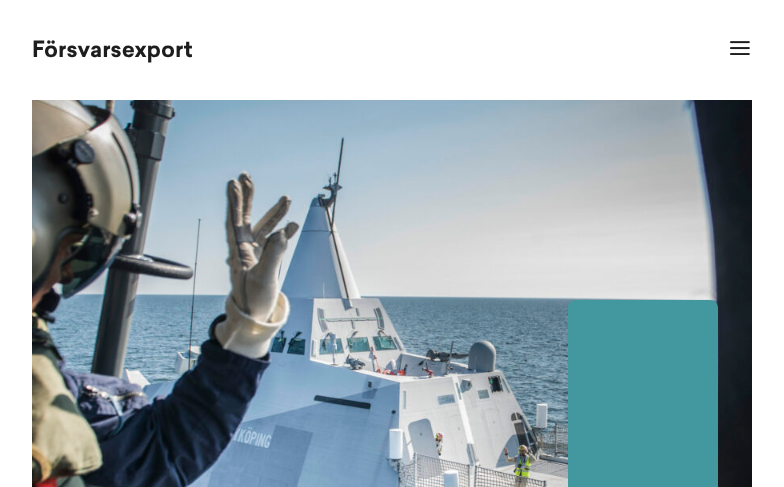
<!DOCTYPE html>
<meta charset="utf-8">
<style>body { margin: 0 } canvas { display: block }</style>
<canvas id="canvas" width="784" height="487"></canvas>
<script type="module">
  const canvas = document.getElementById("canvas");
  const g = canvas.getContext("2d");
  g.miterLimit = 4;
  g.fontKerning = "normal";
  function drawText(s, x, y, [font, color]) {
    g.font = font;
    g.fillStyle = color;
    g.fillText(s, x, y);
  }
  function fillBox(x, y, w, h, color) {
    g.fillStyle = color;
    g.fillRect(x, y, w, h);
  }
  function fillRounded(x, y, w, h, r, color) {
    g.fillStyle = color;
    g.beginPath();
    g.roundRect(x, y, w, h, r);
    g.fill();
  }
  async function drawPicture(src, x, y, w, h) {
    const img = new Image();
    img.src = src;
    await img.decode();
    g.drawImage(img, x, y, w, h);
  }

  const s1 = ["bold 22px 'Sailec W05'", "#1E1D1D"];

  fillBox(0, 0, 784, 487, "#FFFFFF");
  drawText("Försvarsexport", 32, 57, s1);
  await drawPicture("pic1.png", 730, 41, 20, 14);
  await drawPicture("pic2.png", 32, 100, 720, 387);
  fillRounded(568, 300, 150, 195, 8, "#42989E");
</script>
